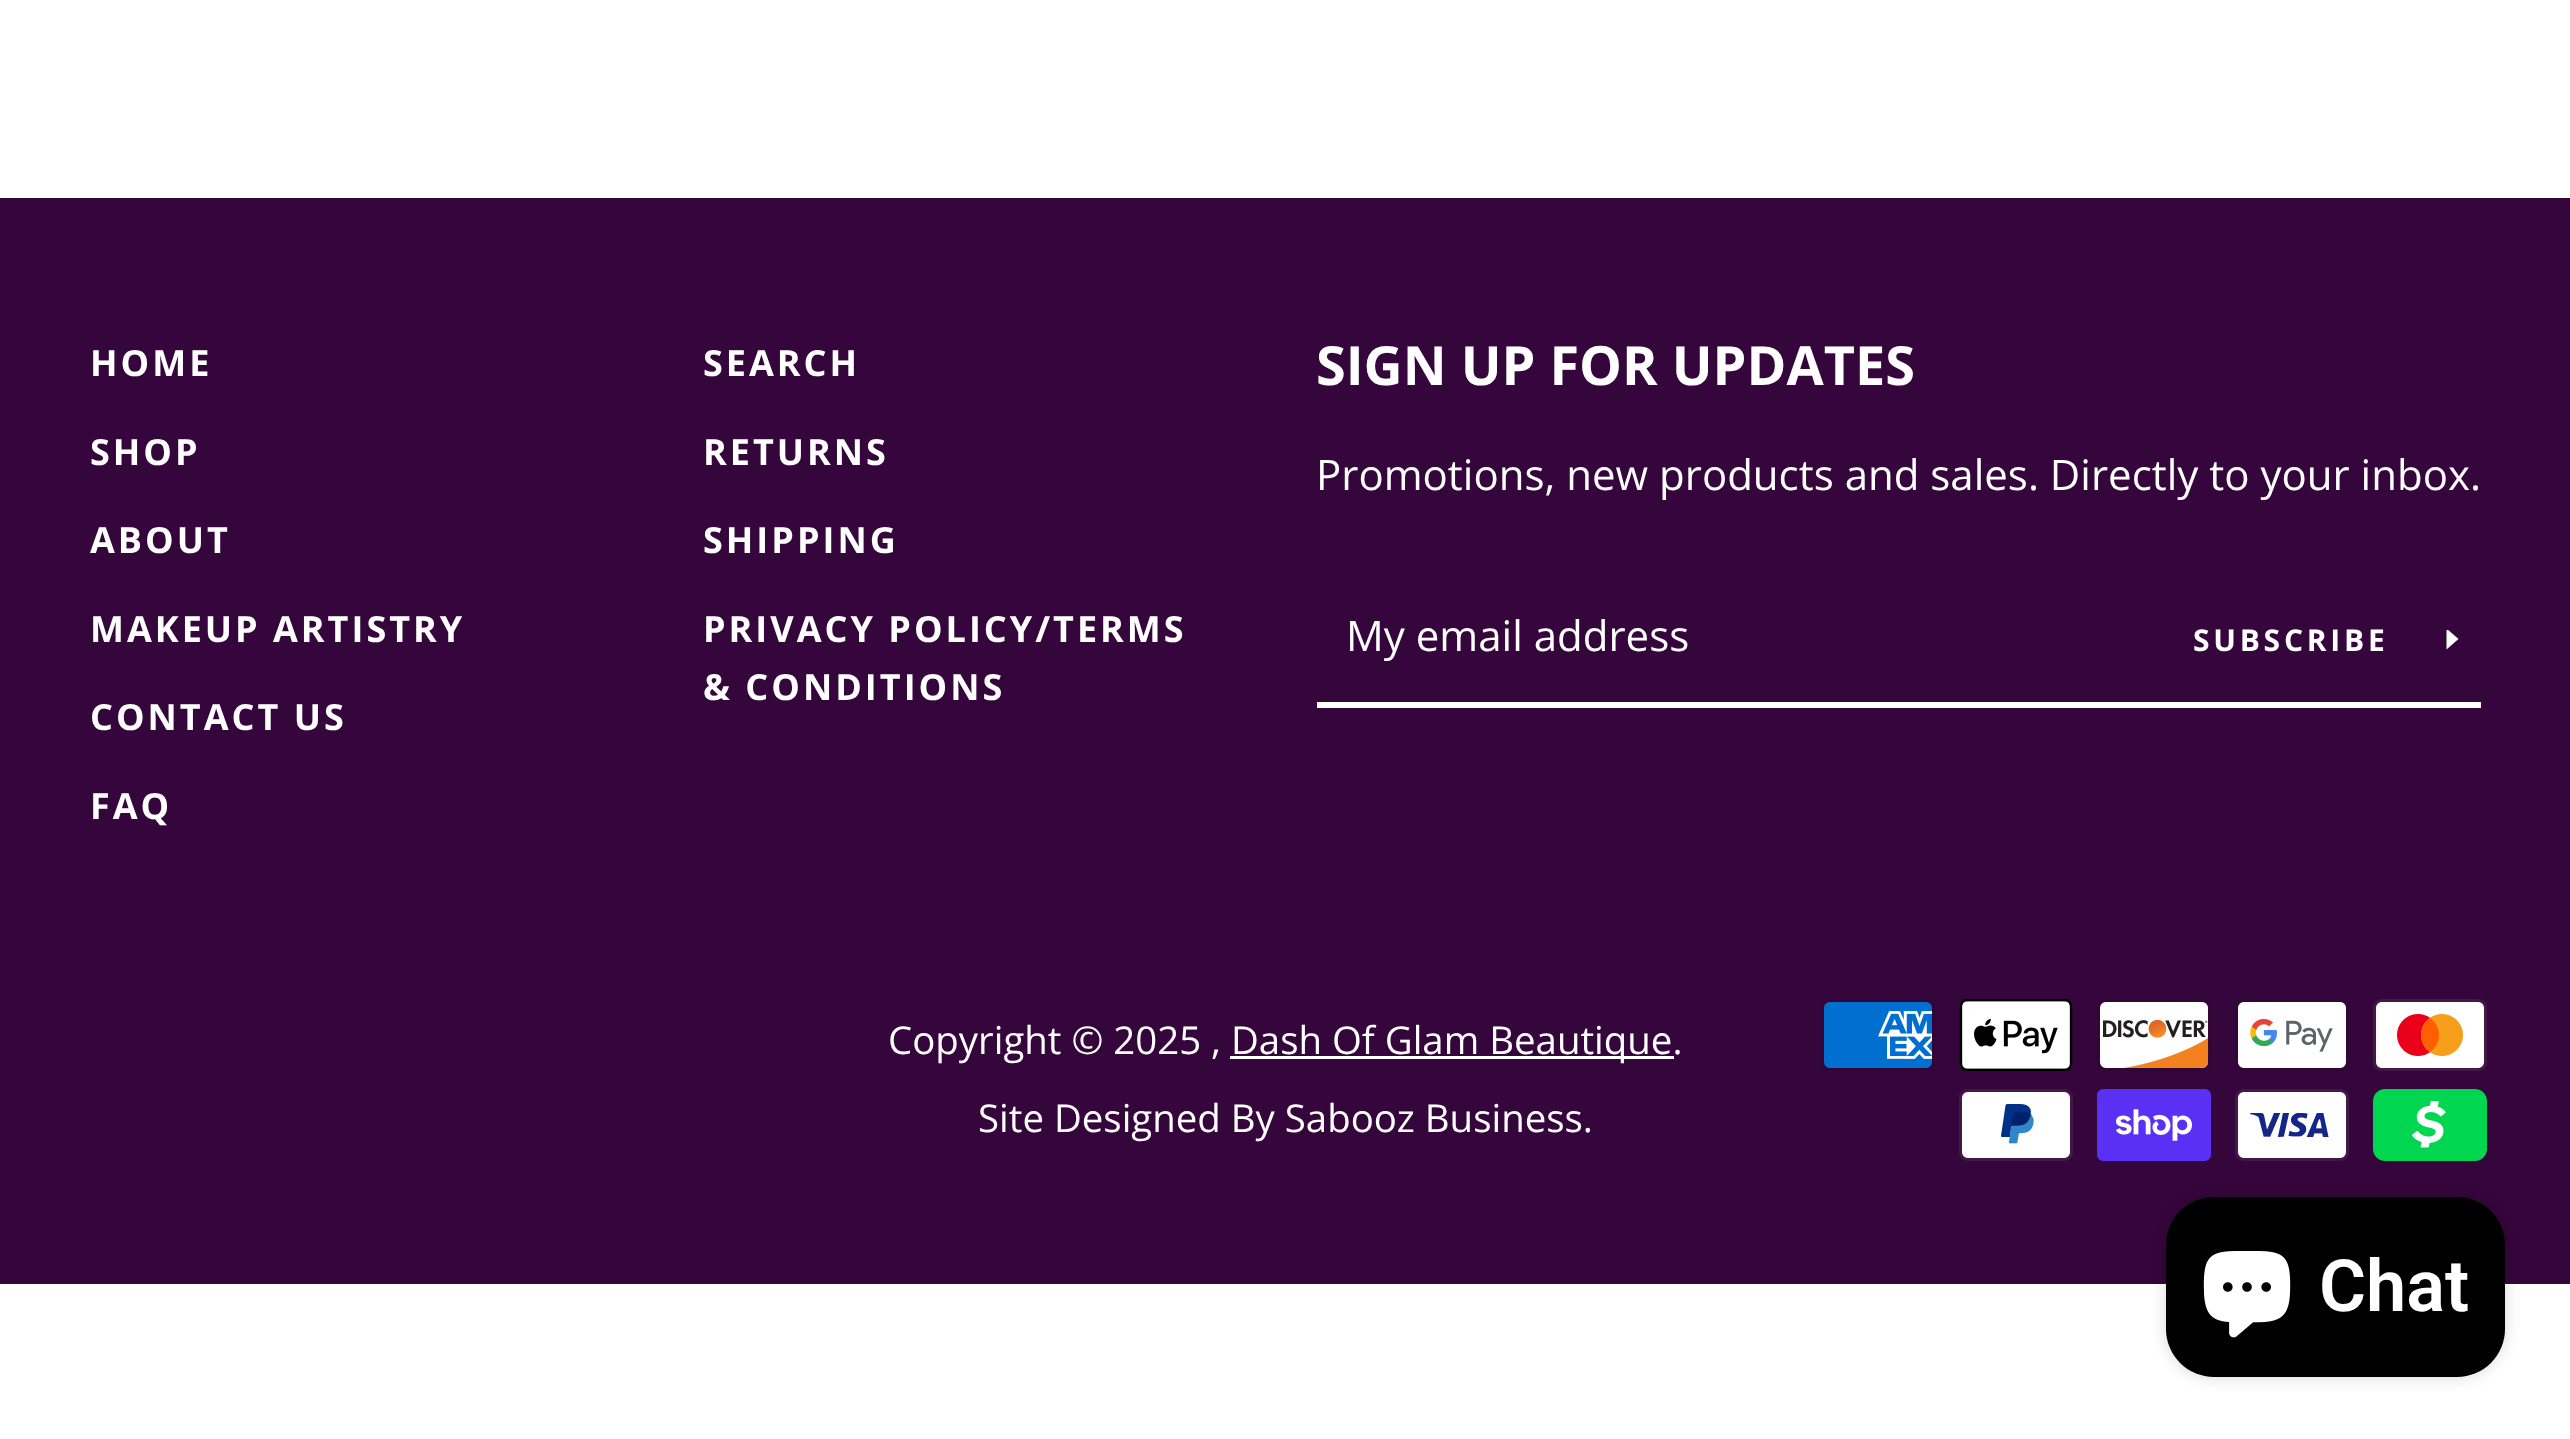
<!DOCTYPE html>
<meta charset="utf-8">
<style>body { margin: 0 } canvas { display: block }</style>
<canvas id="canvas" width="2570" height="1439"></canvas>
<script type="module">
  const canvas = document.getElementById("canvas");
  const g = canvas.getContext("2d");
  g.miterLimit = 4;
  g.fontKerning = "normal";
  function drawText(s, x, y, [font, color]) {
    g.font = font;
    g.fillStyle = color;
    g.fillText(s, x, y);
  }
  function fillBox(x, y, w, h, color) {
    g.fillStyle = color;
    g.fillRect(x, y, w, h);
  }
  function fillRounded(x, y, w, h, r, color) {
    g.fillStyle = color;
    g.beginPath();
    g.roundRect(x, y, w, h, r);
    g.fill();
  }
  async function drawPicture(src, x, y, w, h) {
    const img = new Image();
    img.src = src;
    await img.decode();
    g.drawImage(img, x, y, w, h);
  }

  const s1 = ["bold 36px Open Sans", "#FFFFFF"];
  const s2 = ["bold 54px Open Sans", "#FFFFFF"];
  const s3 = ["42px Open Sans", "#FFFFFF"];
  const s4 = ["bold 30px Open Sans", "#FFFFFF"];
  const s5 = ["38.4px Open Sans", "#FFFFFF"];
  const s6 = ["600 72px Roboto", "#FFFFFF"];

  fillBox(0, 0, 2570, 1439, "#FFFFFF");
  fillBox(0, 198, 2570, 1086, "#35063B");
  g.letterSpacing = "3px";
  drawText("HOME", 90, 376, s1);
  drawText("SHOP", 90, 465, s1);
  drawText("ABOUT", 90, 553, s1);
  drawText("MAKEUP ARTISTRY", 90, 642, s1);
  drawText("CONTACT US", 90, 730, s1);
  drawText("FAQ", 90, 819, s1);
  drawText("SEARCH", 703, 376, s1);
  drawText("RETURNS", 703, 465, s1);
  drawText("SHIPPING", 703, 553, s1);
  drawText("PRIVACY POLICY/TERMS", 703, 642, s1);
  drawText("& CONDITIONS", 703, 700, s1);
  g.letterSpacing = "0px";
  drawText("SIGN UP FOR UPDATES", 1316, 385, s2);
  drawText("Promotions, new products and sales. Directly to your inbox.", 1316, 490, s3);
  fillBox(1317, 702, 1164, 6, "#FFFFFF");
  drawText("My email address", 1346, 651, s3);
  g.letterSpacing = "3.75px";
  drawText("SUBSCRIBE", 2193, 651, s4);
  g.save();
  g.beginPath();
  g.rect(2400, 630, 60, 21);
  g.clip();
  g.beginPath();
  g.moveTo(2458.5, 639);
  g.lineTo(2446.5, 649.5);
  g.lineTo(2446.5, 628.5);
  g.closePath();
  g.fill();
  g.restore();
  g.letterSpacing = "0px";
  drawText("Copyright © 2025 ,", 888, 1054, s5);
  fillBox(1230, 1056, 444, 3, "#FFFFFF");
  drawText("Dash Of Glam Beautique.", 1231, 1054, s5);
  drawText("Site Designed By Sabooz Business.", 978, 1132, s5);
  await drawPicture("pic1.png", 1821, 999, 114, 72);
  await drawPicture("pic2.png", 1959, 999, 114, 72);
  await drawPicture("pic3.png", 2097, 999, 114, 72);
  await drawPicture("pic4.png", 2235, 999, 114, 72);
  await drawPicture("pic5.png", 2373, 999, 114, 72);
  await drawPicture("pic6.png", 1959, 1089, 114, 72);
  await drawPicture("pic7.png", 2097, 1089, 114, 72);
  await drawPicture("pic8.png", 2235, 1089, 114, 72);
  await drawPicture("pic9.png", 2373, 1089, 114, 72);
  g.fillStyle = "rgba(0, 0, 0, 0.15)";
  g.filter = "blur(7.5px)";
  g.beginPath();
  g.roundRect(2166, 1197, 339, 180, 48);
  g.fill();
  g.filter = "none";
  fillRounded(2166, 1197, 339, 180, 48, "#000000");
  await drawPicture("pic10.png", 2203, 1251, 88, 87);
  drawText("Chat", 2319, 1311, s6);
</script>
